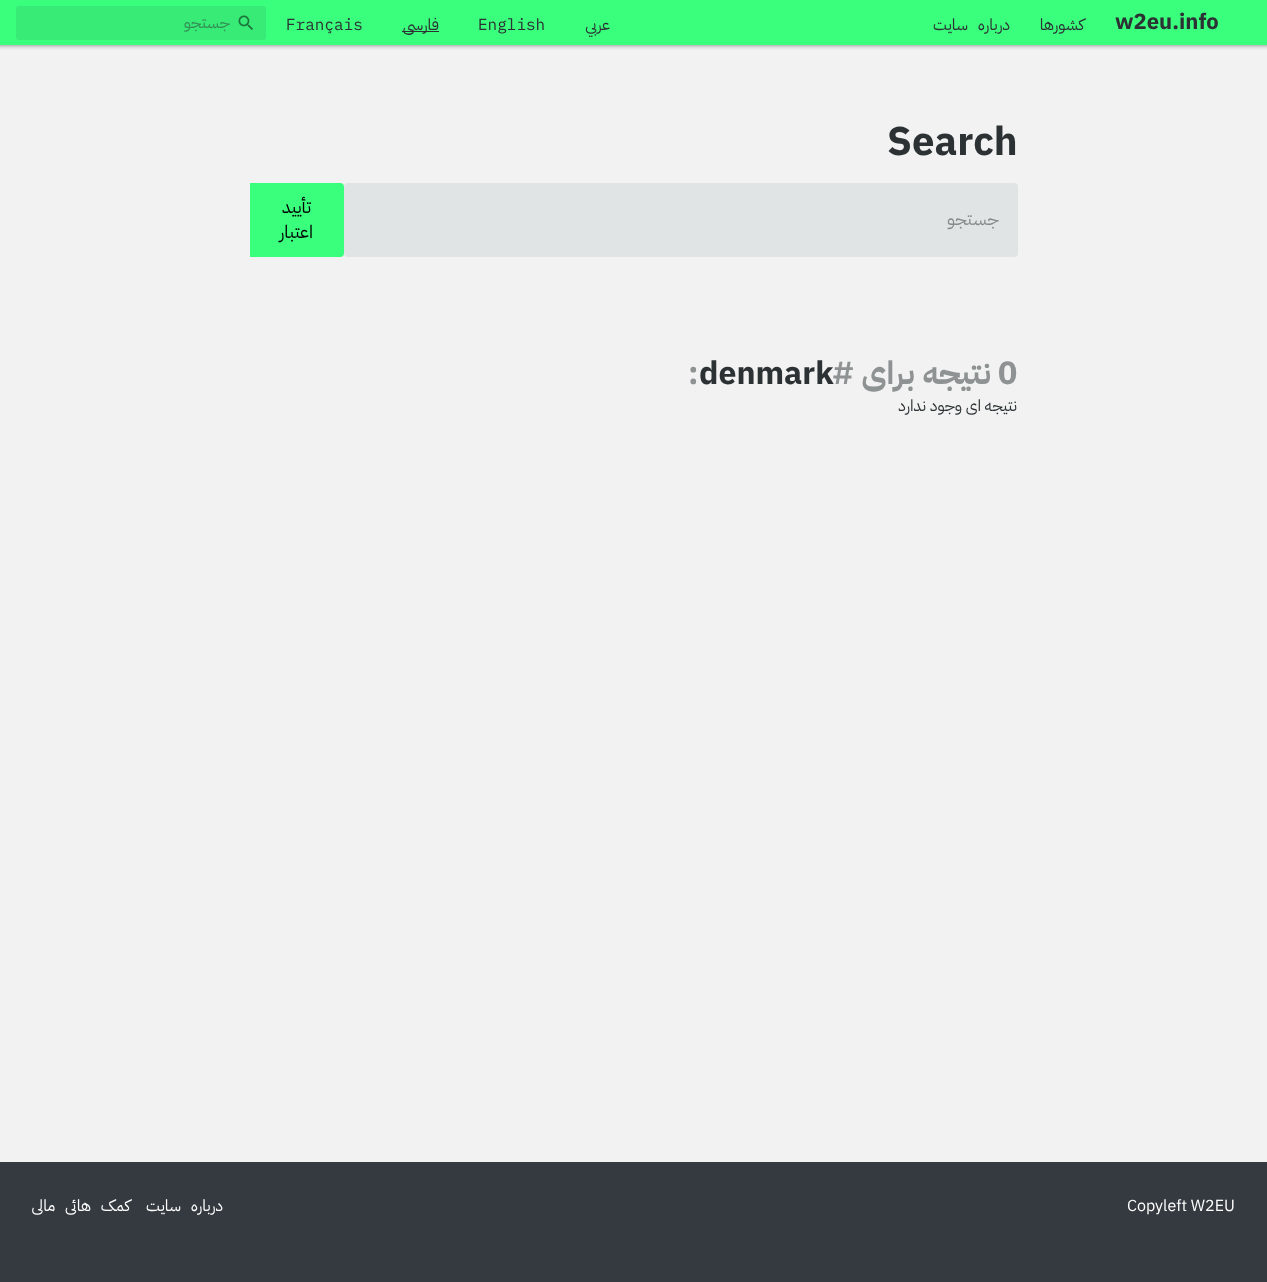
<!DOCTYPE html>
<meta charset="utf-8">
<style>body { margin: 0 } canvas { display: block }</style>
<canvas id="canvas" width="1267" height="1282"></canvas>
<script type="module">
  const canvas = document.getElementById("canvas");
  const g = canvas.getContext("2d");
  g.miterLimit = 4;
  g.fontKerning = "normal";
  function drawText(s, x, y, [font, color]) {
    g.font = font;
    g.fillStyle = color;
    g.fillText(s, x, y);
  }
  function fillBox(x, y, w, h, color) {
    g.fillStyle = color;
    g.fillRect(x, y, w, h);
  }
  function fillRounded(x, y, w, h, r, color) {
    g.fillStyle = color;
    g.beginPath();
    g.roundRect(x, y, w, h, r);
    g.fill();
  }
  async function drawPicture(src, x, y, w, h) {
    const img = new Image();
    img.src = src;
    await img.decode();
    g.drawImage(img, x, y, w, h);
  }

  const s1 = ["bold 22px IBM Plex Sans", "#2C3133"];
  const s2 = ["16px IBM Plex Sans Arabic", "#2C3133"];
  const s3 = ["16px IBM Plex Mono", "#2C3133"];
  const s4 = ["16px IBM Plex Sans Arabic", "#328E55"];
  const s5 = ["bold 40px IBM Plex Sans", "#2C3133"];
  const s6 = ["18px IBM Plex Sans Arabic", "#878B8C"];
  const s7 = ["18px IBM Plex Sans Arabic", "#000000"];
  const s8 = ["bold 32px IBM Plex Sans Arabic", "#8F9293"];
  const s9 = ["bold 32px IBM Plex Sans", "#2C3133"];
  const s10 = ["bold 32px IBM Plex Sans", "#8F9293"];
  const s11 = ["16px IBM Plex Sans", "#FFFFFF"];
  const s12 = ["16px IBM Plex Sans Arabic", "#FFFFFF"];

  fillBox(0, 0, 1267, 1282, "#F2F2F2");
  g.fillStyle = "rgba(0, 0, 0, 0.5)";
  g.filter = "blur(2.5px)";
  g.beginPath();
  g.rect(-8, -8, 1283, 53);
  g.fill();
  g.filter = "none";
  fillBox(0, 0, 1267, 45, "#39FF7D");
  drawText("w2eu.info", 1115, 29, s1);
  g.direction = "rtl";
  drawText("کشورها", 1084, 30, s2);
  g.wordSpacing = "6px";
  drawText("درباره سایت", 1010, 30, s2);
  g.wordSpacing = "0px";
  drawText("عربي", 610, 30, s2);
  g.direction = "ltr";
  drawText("English", 478, 30, s3);
  fillBox(402, 31, 37, 1, "#2C3133");
  g.direction = "rtl";
  drawText("فارسی", 439, 30, s2);
  g.direction = "ltr";
  drawText("Français", 286, 30, s3);
  fillRounded(16, 6, 250, 34, 3, "#38EA76");
  await drawPicture("pic1.png", 238, 15, 15, 15);
  g.direction = "rtl";
  drawText("جستجو", 230, 28, s4);
  g.direction = "ltr";
  drawText("Search", 887, 155, s5);
  fillRounded(344, 183, 674, 74, 4, "#E1E4E5");
  g.direction = "rtl";
  drawText("جستجو", 999, 225, s6);
  g.fillStyle = "#39FF7D";
  g.beginPath();
  g.roundRect(250, 183, 94, 74, [0, 4, 4, 0]);
  g.fill();
  drawText("تأیید", 311, 213, s7);
  drawText("اعتبار", 313, 238, s7);
  g.direction = "ltr";
  drawText("0", 998, 384, s8);
  g.direction = "rtl";
  drawText("نتیجه برای", 991, 384, s8);
  g.direction = "ltr";
  drawText("denmark", 699, 384, s9);
  drawText("#", 833, 384, s10);
  drawText(":", 688, 384, s10);
  g.direction = "rtl";
  drawText("نتیجه ای وجود ندارد", 1017, 411, s2);
  fillBox(0, 1162, 1267, 120, "#343A40");
  g.direction = "ltr";
  drawText("Copyleft W2EU", 1127, 1211, s11);
  g.wordSpacing = "6px";
  g.direction = "rtl";
  drawText("درباره سایت", 223, 1211, s12);
  drawText("کمک هائی مالی", 130, 1211, s12);
</script>
